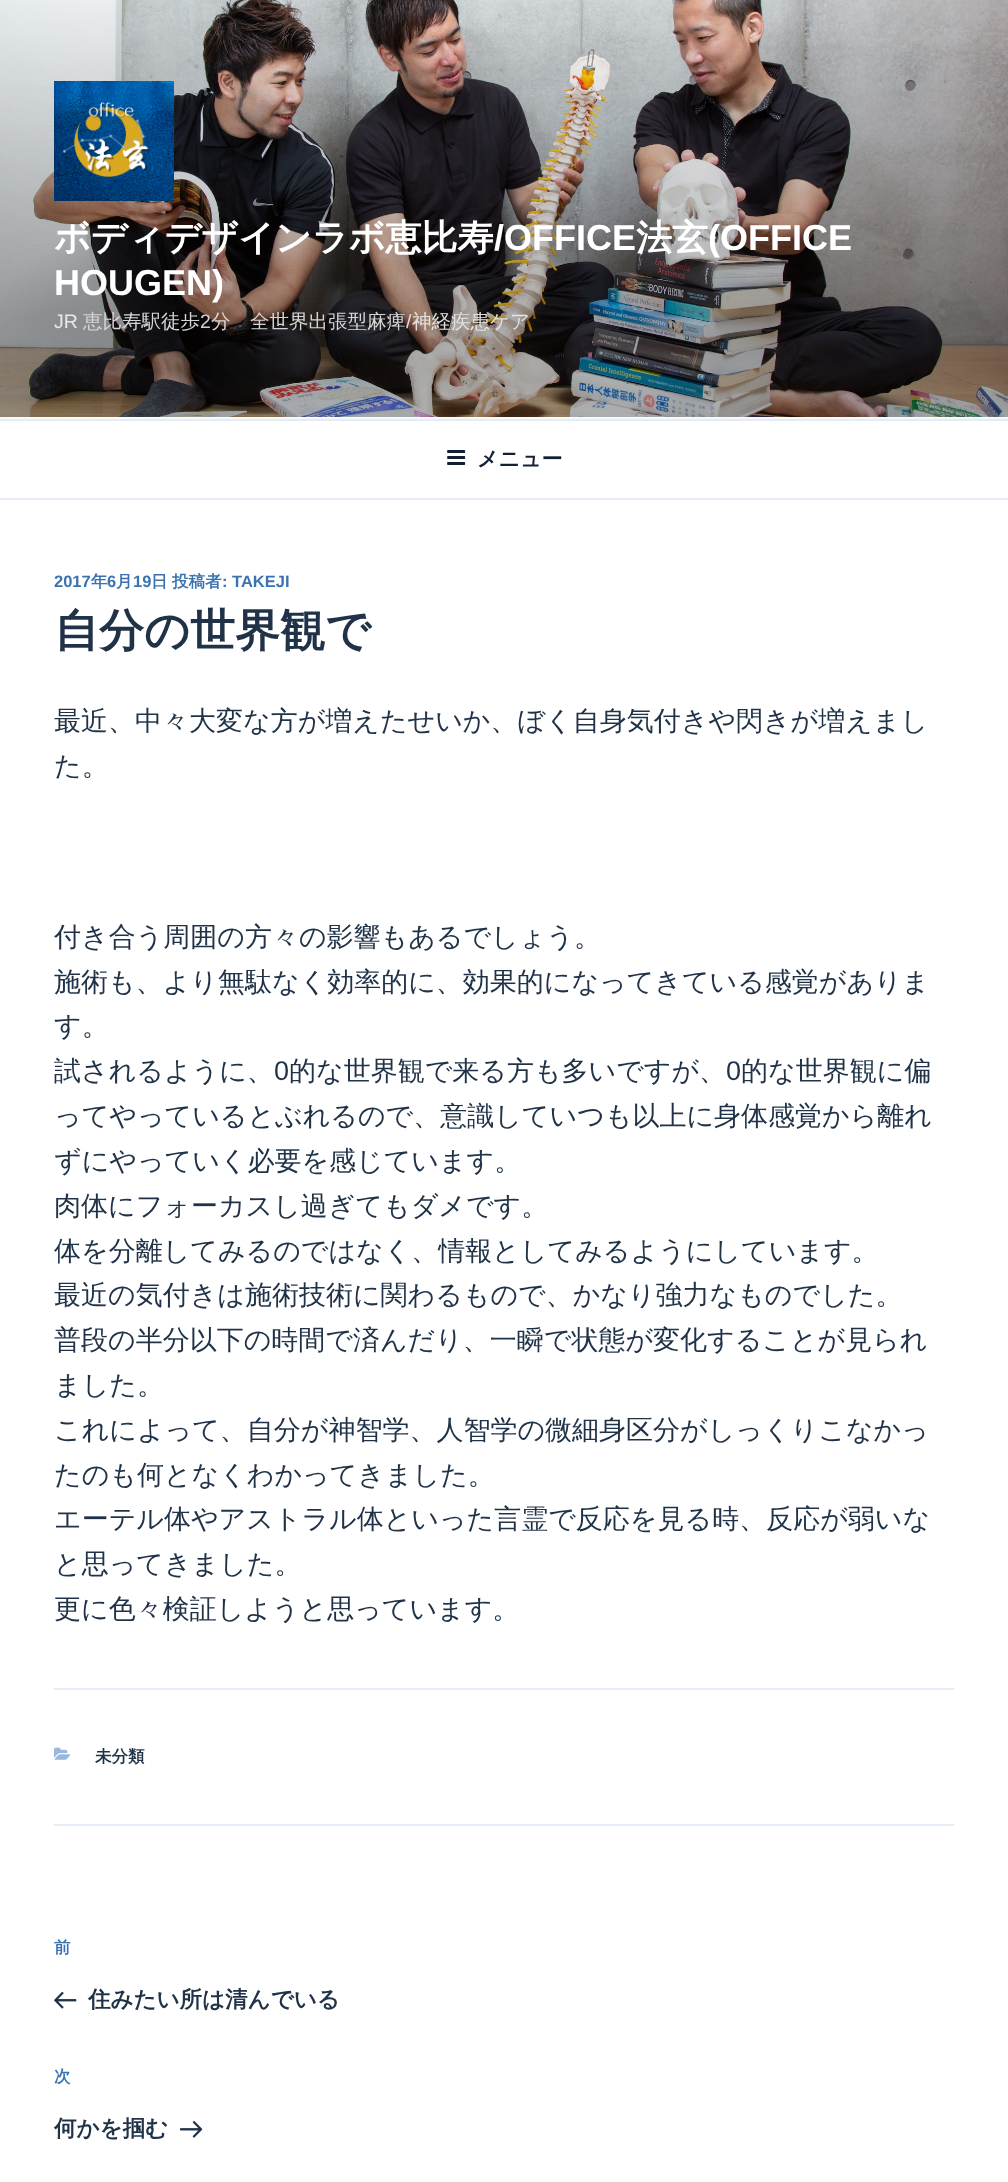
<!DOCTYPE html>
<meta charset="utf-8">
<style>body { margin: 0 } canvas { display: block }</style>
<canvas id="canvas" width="1008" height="2182"></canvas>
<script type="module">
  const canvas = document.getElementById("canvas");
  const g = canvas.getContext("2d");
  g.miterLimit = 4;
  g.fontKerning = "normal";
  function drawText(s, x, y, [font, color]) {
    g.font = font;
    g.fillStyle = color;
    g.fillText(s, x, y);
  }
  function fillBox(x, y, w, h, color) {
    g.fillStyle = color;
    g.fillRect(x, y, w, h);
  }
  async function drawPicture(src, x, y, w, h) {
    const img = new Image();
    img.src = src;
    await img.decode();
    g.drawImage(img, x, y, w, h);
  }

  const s1 = ["bold 36px WenQuanYi Zen Hei", "#FFFFFF"];
  const s2 = ["bold 36px Liberation Sans", "#FFFFFF"];
  const s3 = ["19.5px Liberation Sans", "#E7E8E8"];
  const s4 = ["500 19.5px WenQuanYi Zen Hei", "#D6D5D6"];
  const s5 = ["19.5px Liberation Sans", "#D1CFCF"];
  const s6 = ["19.5px Liberation Sans", "#E1DBD9"];
  const s7 = ["500 19.5px WenQuanYi Zen Hei", "#E4E2E0"];
  const s8 = ["bold 21px WenQuanYi Zen Hei", "#112132"];
  const s9 = ["bold 16.5px Liberation Sans", "#3B73B0"];
  const s10 = ["bold 16.5px WenQuanYi Zen Hei", "#3B73B0"];
  const s11 = ["bold 45px WenQuanYi Zen Hei", "#1F3247"];
  const s12 = ["500 27px WenQuanYi Zen Hei", "#1F3247"];
  const s13 = ["27px Liberation Sans", "#1F3247"];
  const s14 = ["bold 16.5px WenQuanYi Zen Hei", "#1F3247"];
  const s15 = ["bold 22.5px WenQuanYi Zen Hei", "#1F3247"];

  fillBox(0, 0, 1008, 2182, "#FFFFFF");
  fillBox(0, 417, 1008, 2, "#F7FAFC");
  await drawPicture("pic1.png", 0, 0, 1008, 417);
  await drawPicture("pic2.png", 54, 81, 120, 120);
  drawText("ボディデザインラボ恵比寿", 54, 250, s1);
  drawText("/OFFICE", 494, 250, s2);
  drawText("法玄", 636, 250, s1);
  drawText("(OFFICE", 708, 250, s2);
  drawText("HOUGEN)", 54, 295, s2);
  drawText("JR", 54, 328, s3);
  drawText("恵比寿駅徒歩", 83, 328, s4);
  drawText("2", 200, 328, s5);
  drawText("分　全世界出張型麻痺", 211, 328, s4);
  drawText("/", 406, 328, s6);
  drawText("神経疾患ケア", 412, 328, s7);
  fillBox(0, 419, 1008, 2, "#E4EDF6");
  fillBox(0, 498, 1008, 2, "#E4EDF6");
  await drawPicture("pic3.png", 447, 450, 19, 15);
  drawText("メニュー", 477, 466, s8);
  drawText("2017", 54, 587, s9);
  drawText("年", 91, 587, s10);
  drawText("6", 107, 587, s9);
  drawText("月", 116, 587, s10);
  drawText("19", 133, 587, s9);
  drawText("日", 151, 587, s10);
  drawText("投稿者", 172, 587, s10);
  drawText(": TAKEJI", 222, 587, s9);
  drawText("自分の世界観で", 54, 646, s11);
  drawText("最近、中々大変な方が増えたせいか、ぼく自身気付きや閃きが増えまし", 54, 730, s12);
  drawText("た。", 54, 775, s12);
  drawText("付き合う周囲の方々の影響もあるでしょう。", 54, 946, s12);
  drawText("施術も、より無駄なく効率的に、効果的になってきている感覚がありま", 54, 991, s12);
  drawText("す。", 54, 1035, s12);
  drawText("試されるように、", 54, 1080, s12);
  drawText("0", 274, 1080, s13);
  drawText("的な世界観で来る方も多いですが、", 289, 1080, s12);
  drawText("0", 726, 1080, s13);
  drawText("的な世界観に偏", 741, 1080, s12);
  drawText("ってやっているとぶれるので、意識していつも以上に身体感覚から離れ", 54, 1125, s12);
  drawText("ずにやっていく必要を感じています。", 54, 1170, s12);
  drawText("肉体にフォーカスし過ぎてもダメです。", 54, 1215, s12);
  drawText("体を分離してみるのではなく、情報としてみるようにしています。", 54, 1260, s12);
  drawText("最近の気付きは施術技術に関わるもので、かなり強力なものでした。", 54, 1304, s12);
  drawText("普段の半分以下の時間で済んだり、一瞬で状態が変化することが見られ", 54, 1349, s12);
  drawText("ました。", 54, 1394, s12);
  drawText("これによって、自分が神智学、人智学の微細身区分がしっくりこなかっ", 54, 1439, s12);
  drawText("たのも何となくわかってきました。", 54, 1484, s12);
  drawText("エーテル体やアストラル体といった言霊で反応を見る時、反応が弱いな", 54, 1528, s12);
  drawText("と思ってきました。", 54, 1573, s12);
  drawText("更に色々検証しようと思っています。", 54, 1618, s12);
  fillBox(54, 1688, 900, 2, "#E4EDF6");
  fillBox(54, 1824, 900, 2, "#E4EDF6");
  await drawPicture("pic4.png", 54, 1747, 17, 13);
  drawText("未分類", 95, 1762, s14);
  drawText("前", 54, 1953, s10);
  await drawPicture("pic5.png", 54, 1991, 23, 18);
  drawText("住みたい所は清んでいる", 88, 2007, s15);
  drawText("次", 54, 2082, s10);
  drawText("何かを掴む", 54, 2136, s15);
  await drawPicture("pic6.png", 180, 2120, 23, 18);
</script>
